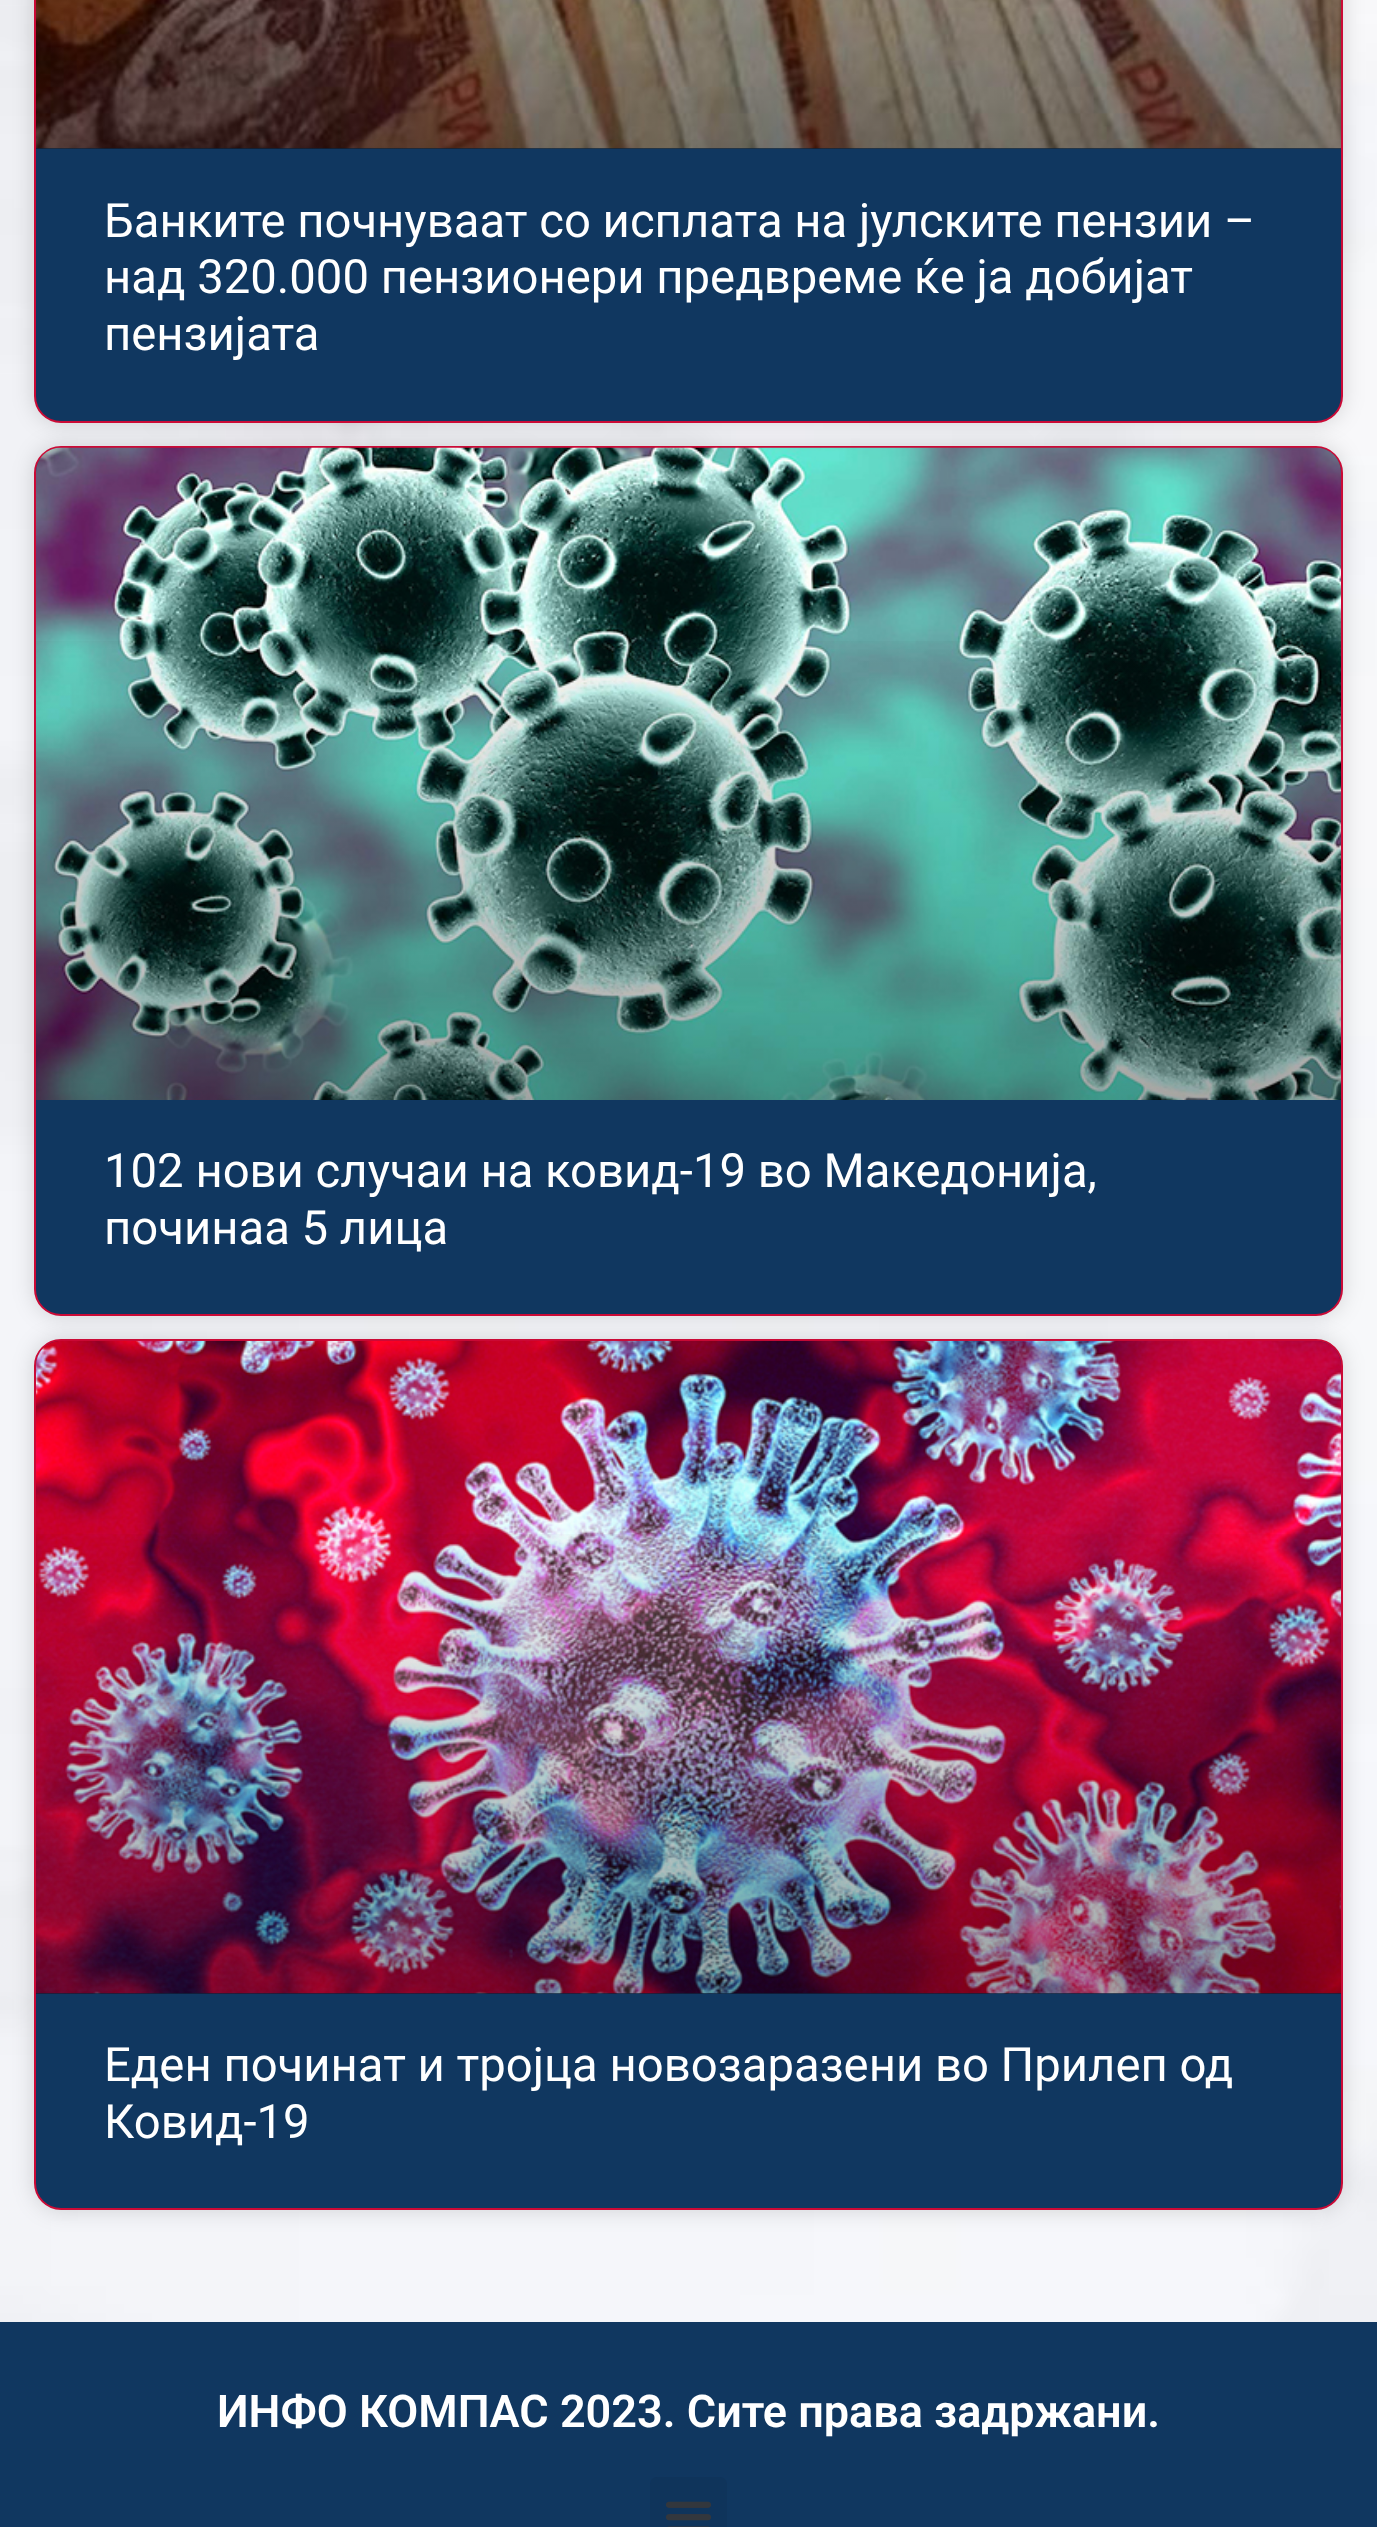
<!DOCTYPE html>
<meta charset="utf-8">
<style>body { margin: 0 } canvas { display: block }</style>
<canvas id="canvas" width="1377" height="2527"></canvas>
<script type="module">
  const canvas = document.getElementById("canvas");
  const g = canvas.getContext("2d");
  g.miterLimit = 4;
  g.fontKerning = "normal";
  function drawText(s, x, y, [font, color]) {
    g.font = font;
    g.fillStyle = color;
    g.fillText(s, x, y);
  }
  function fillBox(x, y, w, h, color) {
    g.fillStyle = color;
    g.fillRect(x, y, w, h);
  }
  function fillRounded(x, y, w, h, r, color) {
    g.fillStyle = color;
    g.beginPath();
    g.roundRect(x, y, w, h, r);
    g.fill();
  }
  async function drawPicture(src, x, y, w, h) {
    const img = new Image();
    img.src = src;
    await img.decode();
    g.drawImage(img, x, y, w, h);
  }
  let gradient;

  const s1 = ["47.25px Roboto", "#FFFFFF"];
  const s2 = ["600 45px Roboto", "#FFFFFF"];

  fillBox(0, 0, 1377, 2527, "#FFFFFF");
  await drawPicture("pic1.png", 0, 0, 1377, 2322);
  g.fillStyle = "rgba(0, 0, 0, 0.15)";
  g.filter = "blur(11px)";
  g.beginPath();
  g.roundRect(34, -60, 1309, 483, 27);
  g.fill();
  g.filter = "none";
  g.fillStyle = "#103760";
  g.beginPath();
  g.roundRect(35, -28, 1307, 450, 26);
  g.fill();
  g.strokeStyle = "#CB0A36";
  g.lineWidth = 2;
  g.stroke();
  await drawPicture("pic2.png", 36, 0, 1305, 149);
  gradient = g.createLinearGradient(689, 149, 689, -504);
  gradient.addColorStop(0, "rgba(0, 0, 0, 0.35)");
  gradient.addColorStop(0.75, "rgba(0, 0, 0, 0)");
  g.fillStyle = gradient;
  g.fillRect(36, 0, 1305, 149);
  drawText("Банките почнуваат со исплата на јулските пензии –", 104, 237, s1);
  drawText("над 320.000 пензионери предвреме ќе ја добијат", 104, 293, s1);
  drawText("пензијата", 104, 350, s1);
  g.fillStyle = "rgba(0, 0, 0, 0.15)";
  g.filter = "blur(11px)";
  g.beginPath();
  g.roundRect(34, 446, 1309, 870, 27);
  g.fill();
  g.filter = "none";
  g.fillStyle = "#103760";
  g.beginPath();
  g.roundRect(35, 447, 1307, 868, 26);
  g.fill();
  g.stroke();
  await drawPicture("pic3.png", 36, 447, 1305, 653);
  gradient = g.createLinearGradient(689, 1100, 689, 448);
  gradient.addColorStop(0, "rgba(0, 0, 0, 0.35)");
  gradient.addColorStop(0.75, "rgba(0, 0, 0, 0)");
  g.fillStyle = gradient;
  g.fillRect(36, 641, 1305, 459);
  drawText("102 нови случаи на ковид-19 во Македонија,", 104, 1187, s1);
  drawText("починаа 5 лица", 104, 1244, s1);
  g.fillStyle = "rgba(0, 0, 0, 0.15)";
  g.filter = "blur(11px)";
  g.beginPath();
  g.roundRect(34, 1339, 1309, 871, 27);
  g.fill();
  g.filter = "none";
  g.fillStyle = "#103760";
  g.beginPath();
  g.roundRect(35, 1340, 1307, 869, 26);
  g.fill();
  g.stroke();
  await drawPicture("pic4.png", 36, 1340, 1305, 654);
  gradient = g.createLinearGradient(689, 1994, 689, 1341);
  gradient.addColorStop(0, "rgba(0, 0, 0, 0.35)");
  gradient.addColorStop(0.75, "rgba(0, 0, 0, 0)");
  g.fillStyle = gradient;
  g.fillRect(36, 1534, 1305, 460);
  drawText("Еден починат и тројца новозаразени во Прилеп од", 104, 2081, s1);
  drawText("Ковид-19", 104, 2138, s1);
  fillBox(0, 2322, 1377, 205, "#103760");
  drawText("ИНФО КОМПАС 2023. Сите права задржани.", 217, 2427, s2);
  fillRounded(650, 2477, 77, 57, 7, "#0F345B");
  await drawPicture("pic5.png", 666, 2501, 45, 26);
</script>
